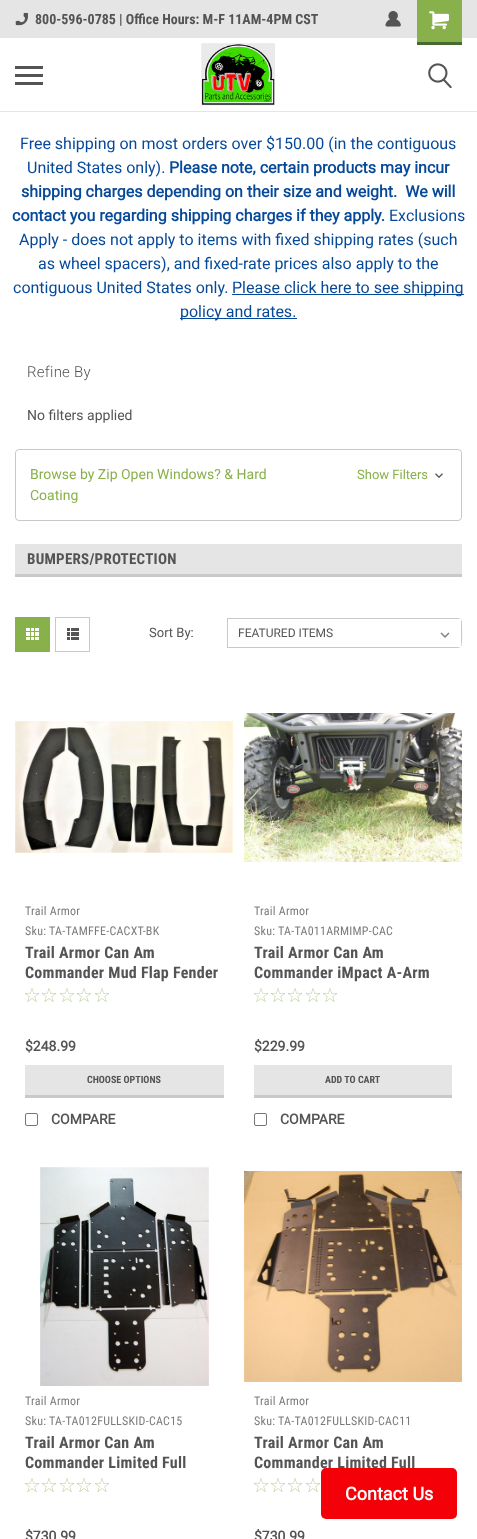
<!DOCTYPE html>
<meta charset="utf-8">
<style>body { margin: 0 } canvas { display: block }</style>
<canvas id="canvas" width="477" height="1539"></canvas>
<script type="module">
  const canvas = document.getElementById("canvas");
  const g = canvas.getContext("2d");
  g.miterLimit = 4;
  g.fontKerning = "normal";
  function drawText(s, x, y, [font, color]) {
    g.font = font;
    g.fillStyle = color;
    g.fillText(s, x, y);
  }
  function fillBox(x, y, w, h, color) {
    g.fillStyle = color;
    g.fillRect(x, y, w, h);
  }
  function fillRounded(x, y, w, h, r, color) {
    g.fillStyle = color;
    g.beginPath();
    g.roundRect(x, y, w, h, r);
    g.fill();
  }
  async function drawPicture(src, x, y, w, h) {
    const img = new Image();
    img.src = src;
    await img.decode();
    g.drawImage(img, x, y, w, h);
  }

  const s1 = ["bold 14px Roboto Condensed", "#545454"];
  const s2 = ["16px Roboto", "#074999"];
  const s3 = ["bold 16px Roboto", "#074999"];
  const s4 = ["300 15px Roboto", "#545454"];
  const s5 = ["14px Roboto", "#545454"];
  const s6 = ["14px Roboto", "#88B04B"];
  const s7 = ["13px Roboto", "#88B04B"];
  const s8 = ["bold 15px Roboto Condensed", "#545454"];
  const s9 = ["13px Roboto", "#545454"];
  const s10 = ["12px Roboto", "#545454"];
  const s11 = ["12px Roboto Condensed", "#7B7B7B"];
  const s12 = ["bold 16px Roboto Condensed", "#545454"];
  const s13 = ["bold 14px Roboto", "#545454"];
  const s14 = ["bold 10px Roboto Condensed", "#545454"];
  const s15 = ["bold 18px Roboto", "#FFFFFF"];

  fillBox(0, 0, 477, 1539, "#FFFFFF");
  fillBox(0, 111, 477, 1, "#E5E5E5");
  fillBox(0, 0, 477, 38, "#E5E5E5");
  await drawPicture("pic1.png", 15, 12, 13, 14);
  drawText("800-596-0785 | Office Hours: M-F 11AM-4PM CST", 35, 24, s1);
  await drawPicture("pic2.png", 385, 11, 16, 16);
  fillBox(417, 0, 45, 42, "#88B04B");
  fillBox(417, 42, 45, 3, "#476A30");
  await drawPicture("pic3.png", 429, 11, 20, 19);
  fillBox(15, 74, 28, 3, "#545454");
  fillBox(15, 66, 28, 3, "#545454");
  fillBox(15, 82, 28, 3, "#545454");
  await drawPicture("pic4.png", 201, 43, 74, 63);
  await drawPicture("pic5.png", 428, 63, 24, 25);
  drawText("Free shipping on most orders over $150.00 (in the contiguous", 20, 149, s2);
  drawText("United States only).", 27, 173, s2);
  drawText("Please note, certain products may incur", 169, 173, s3);
  drawText("shipping charges depending on their size and weight.  We will", 21, 197, s3);
  drawText("contact you regarding shipping charges if they apply.", 12, 221, s3);
  drawText("Exclusions", 389, 221, s2);
  drawText("Apply - does not apply to items with fixed shipping rates (such", 19, 245, s2);
  drawText("as wheel spacers), and fixed-rate prices also apply to the", 38, 269, s2);
  drawText("contiguous United States only.", 13, 293, s2);
  fillBox(232, 294, 232, 1, "#074999");
  drawText("Please click here to see shipping", 232, 293, s2);
  fillBox(180, 318, 117, 1, "#074999");
  drawText("policy and rates.", 180, 317, s2);
  g.letterSpacing = "0.25px";
  drawText("Refine By", 27, 377, s4);
  g.letterSpacing = "0px";
  drawText("No filters applied", 27, 420, s5);
  g.beginPath();
  g.roundRect(15.5, 449.5, 446, 71, 3.5);
  g.strokeStyle = "#C9C9C9";
  g.stroke();
  drawText("Browse by Zip Open Windows? & Hard", 30, 479, s6);
  drawText("Coating", 30, 500, s6);
  drawText("Show Filters", 357, 479, s7);
  await drawPicture("pic6.png", 435, 473, 8, 5);
  fillBox(15, 544, 447, 30, "#E5E5E5");
  fillBox(15, 574, 447, 3, "#C9C9C9");
  g.letterSpacing = "0.25px";
  drawText("BUMPERS/PROTECTION", 27, 564, s8);
  fillBox(15, 617, 35, 35, "#88B04B");
  await drawPicture("pic7.png", 26, 628, 13, 12);
  g.strokeRect(55.5, 617.5, 34, 34);
  await drawPicture("pic8.png", 67, 628, 12, 12);
  g.letterSpacing = "0px";
  drawText("Sort By:", 149, 637, s9);
  await drawPicture("pic9.png", 440, 632, 10, 6);
  g.fillStyle = "#C9C9C9";
  g.beginPath();
  g.moveTo(227, 618);
  g.lineTo(227, 648);
  g.lineTo(458, 648);
  g.lineTo(461, 647);
  g.lineTo(228, 647);
  g.lineTo(228, 619);
  g.lineTo(461, 619);
  g.lineTo(458, 618);
  g.closePath();
  g.moveTo(462, 622);
  g.lineTo(461, 619);
  g.lineTo(461, 647);
  g.bezierCurveTo(463, 644, 462, 626, 462, 622);
  g.closePath();
  g.fill("evenodd");
  drawText("FEATURED ITEMS", 238, 637, s10);
  await drawPicture("pic10.png", 15, 721, 218, 132);
  g.letterSpacing = "0.25px";
  drawText("Trail Armor", 25, 915, s11);
  drawText("Sku: TA-TAMFFE-CACXT-BK", 25, 935, s11);
  drawText("Trail Armor Can Am", 25, 958, s12);
  drawText("Commander Mud Flap Fender", 25, 978, s12);
  await drawPicture("pic11.png", 25, 988, 14, 14);
  await drawPicture("pic11.png", 42, 988, 14, 14);
  await drawPicture("pic11.png", 60, 988, 14, 14);
  await drawPicture("pic11.png", 77, 988, 14, 14);
  await drawPicture("pic11.png", 95, 988, 14, 14);
  g.letterSpacing = "0px";
  drawText("$248.99", 25, 1051, s13);
  fillBox(25, 1065, 199, 30, "#E5E5E5");
  fillBox(25, 1095, 199, 3, "#C9C9C9");
  drawText("CHOOSE OPTIONS", 87, 1083, s14);
  g.beginPath();
  g.roundRect(25.5, 1113.5, 12, 12, 1.5);
  g.strokeStyle = "#767676";
  g.stroke();
  drawText("COMPARE", 51, 1124, s13);
  await drawPicture("pic12.png", 244, 713, 218, 149);
  g.letterSpacing = "0.25px";
  drawText("Trail Armor", 254, 915, s11);
  drawText("Sku: TA-TA011ARMIMP-CAC", 254, 935, s11);
  drawText("Trail Armor Can Am", 254, 958, s12);
  drawText("Commander iMpact A-Arm", 254, 978, s12);
  await drawPicture("pic11.png", 254, 988, 14, 14);
  await drawPicture("pic11.png", 271, 988, 14, 14);
  await drawPicture("pic11.png", 288, 988, 14, 14);
  await drawPicture("pic11.png", 306, 988, 14, 14);
  await drawPicture("pic11.png", 323, 988, 14, 14);
  g.letterSpacing = "0px";
  drawText("$229.99", 254, 1051, s13);
  fillBox(254, 1065, 198, 30, "#E5E5E5");
  fillBox(254, 1095, 198, 3, "#C9C9C9");
  drawText("ADD TO CART", 325, 1083, s14);
  g.beginPath();
  g.roundRect(254.5, 1113.5, 12, 12, 1.5);
  g.stroke();
  drawText("COMPARE", 280, 1124, s13);
  await drawPicture("pic13.png", 40, 1167, 169, 219);
  g.letterSpacing = "0.25px";
  drawText("Trail Armor", 25, 1405, s11);
  drawText("Sku: TA-TA012FULLSKID-CAC15", 25, 1425, s11);
  drawText("Trail Armor Can Am", 25, 1448, s12);
  drawText("Commander Limited Full", 25, 1468, s12);
  await drawPicture("pic11.png", 25, 1478, 14, 14);
  await drawPicture("pic11.png", 42, 1478, 14, 14);
  await drawPicture("pic11.png", 60, 1478, 14, 14);
  await drawPicture("pic11.png", 77, 1478, 14, 14);
  await drawPicture("pic11.png", 95, 1478, 14, 14);
  g.letterSpacing = "0px";
  drawText("$730.99", 25, 1541, s13);
  await drawPicture("pic14.png", 244, 1171, 218, 211);
  g.letterSpacing = "0.25px";
  drawText("Trail Armor", 254, 1405, s11);
  drawText("Sku: TA-TA012FULLSKID-CAC11", 254, 1425, s11);
  drawText("Trail Armor Can Am", 254, 1448, s12);
  drawText("Commander Limited Full", 254, 1468, s12);
  await drawPicture("pic11.png", 254, 1478, 14, 14);
  await drawPicture("pic11.png", 271, 1478, 14, 14);
  await drawPicture("pic11.png", 288, 1478, 14, 14);
  await drawPicture("pic11.png", 306, 1478, 14, 14);
  g.letterSpacing = "0px";
  drawText("$730.99", 254, 1541, s13);
  fillRounded(321, 1468, 136, 51, 5, "#F40009");
  drawText("Contact Us", 345, 1500, s15);
</script>
